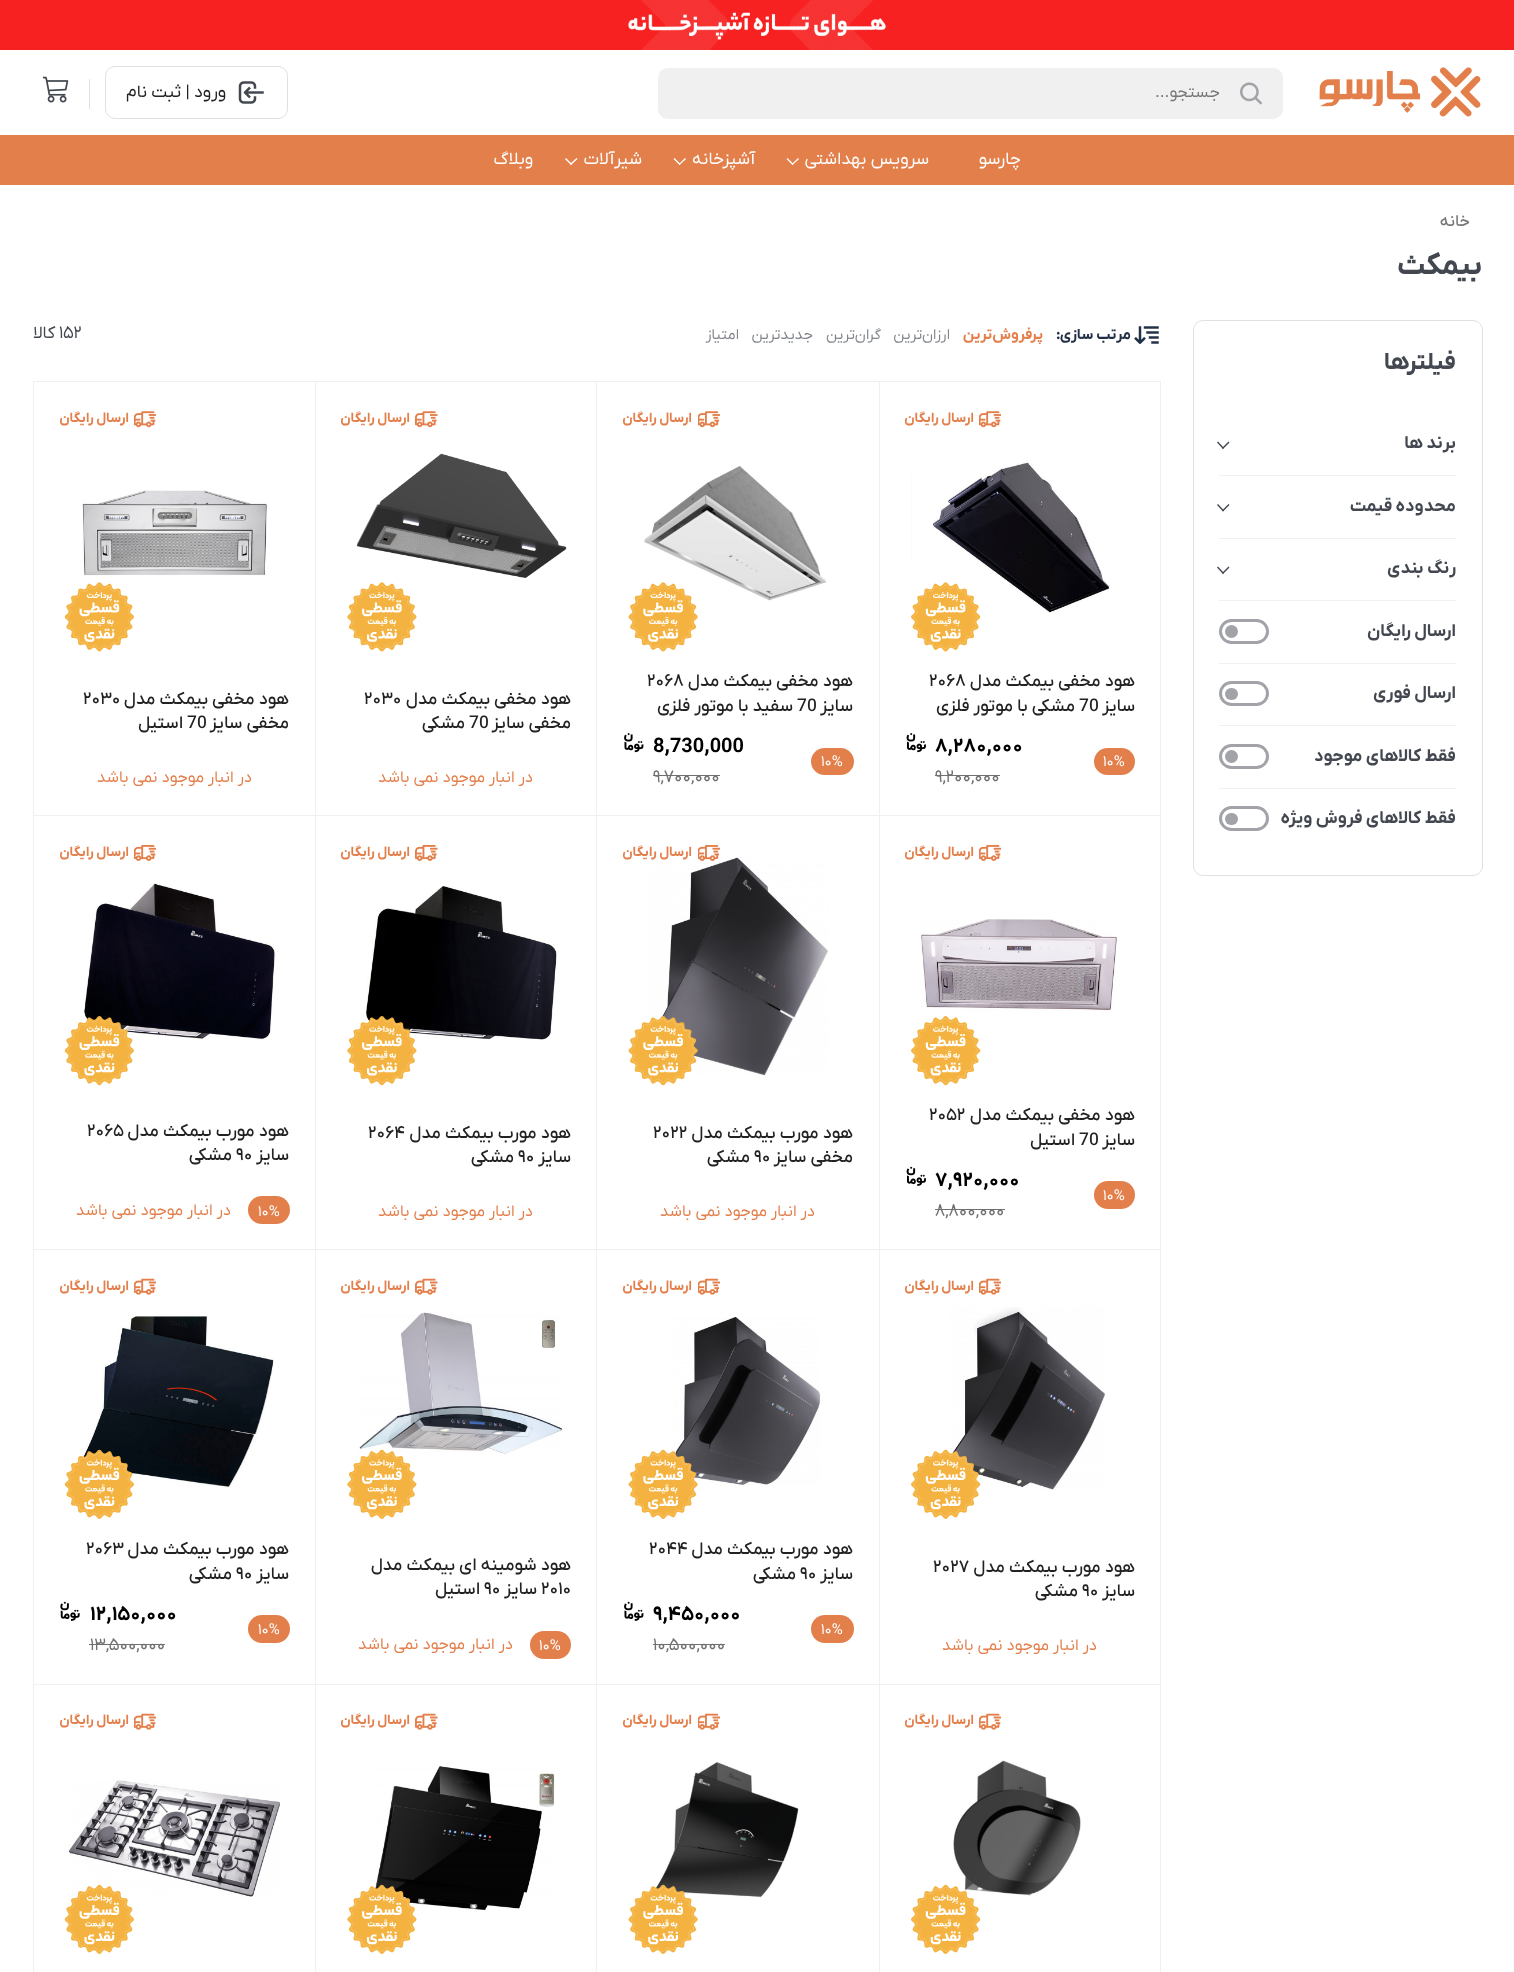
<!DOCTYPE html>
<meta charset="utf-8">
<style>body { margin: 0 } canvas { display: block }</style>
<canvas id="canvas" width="1514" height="1972"></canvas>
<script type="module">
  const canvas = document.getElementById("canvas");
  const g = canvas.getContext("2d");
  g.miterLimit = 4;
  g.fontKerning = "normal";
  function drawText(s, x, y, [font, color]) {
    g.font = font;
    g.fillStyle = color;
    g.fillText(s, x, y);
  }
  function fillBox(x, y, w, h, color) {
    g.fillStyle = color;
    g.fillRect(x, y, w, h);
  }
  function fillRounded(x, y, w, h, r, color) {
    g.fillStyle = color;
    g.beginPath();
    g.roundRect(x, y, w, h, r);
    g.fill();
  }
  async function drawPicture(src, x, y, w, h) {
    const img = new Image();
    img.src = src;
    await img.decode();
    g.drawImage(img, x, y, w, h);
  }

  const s1 = ["16.5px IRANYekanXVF", "#767676"];
  const s2 = ["17.5px IRANYekanXVF", "#222222"];
  const s3 = ["17.5px IRANYekanXVF", "#FFFFFF"];
  const s4 = ["500 16.25px IRANYekanXVF", "#767676"];
  const s5 = ["bold 30px IRANYekanXVF", "#424750"];
  const s6 = ["bold 24px IRANYekanXVF", "#424750"];
  const s7 = ["bold 17.5px IRANYekanXVF", "#424750"];
  const s8 = ["bold 15px IRANYekanXVF", "#213047"];
  const s9 = ["bold 15px IRANYekanXVF", "#E37F4B"];
  const s10 = ["15px IRANYekanXVF", "#81858B"];
  const s11 = ["17.5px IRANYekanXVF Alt", "#424750"];
  const s12 = ["17.5px IRANYekanXVF", "#424750"];
  const s13 = ["bold 13.75px IRANYekanXVF", "#E37F4B"];
  const s14 = ["500 17.5px IRANYekanXVF", "#222222"];
  const s15 = ["500 17.5px IRANYekanXVF Alt", "#222222"];
  const s16 = ["15px IRANYekanXVF Alt", "#FFFFFF"];
  const s17 = ["bold 20px IRANYekanXVF Alt", "#000000"];
  const s18 = ["17.5px IRANYekanXVF Alt", "#707070"];
  const s19 = ["bold 20px IRANYekanXVF", "#000000"];
  const s20 = ["16.25px IRANYekanXVF", "#E37F4B"];

  fillBox(0, 0, 1514, 1972, "#FFFFFF");
  await drawPicture("pic1.png", 0, 0, 1514, 50);
  await drawPicture("pic2.png", 1319, 67, 162, 50);
  fillRounded(658, 68, 625, 51, 10, "#F0F0F1");
  await drawPicture("pic3.png", 1240, 82, 23, 23);
  g.direction = "rtl";
  drawText("جستجو...", 1220, 97, s1);
  g.beginPath();
  g.roundRect(105.5, 66.5, 182, 52, 9.5);
  g.strokeStyle = "#E0E0E2";
  g.stroke();
  await drawPicture("pic4.png", 238, 81, 26, 23);
  drawText("ورود | ثبت نام", 226, 97, s2);
  fillBox(89, 79, 1, 30, "#E0E0E2");
  await drawPicture("pic5.png", 43, 76, 26, 27);
  fillBox(0, 135, 1514, 50, "#E37F4B");
  drawText("چارسو", 1021, 164, s3);
  drawText("سرویس بهداشتی", 929, 164, s3);
  g.beginPath();
  g.moveTo(798, 158);
  g.lineTo(799, 159);
  g.lineTo(792.5, 165);
  g.lineTo(792, 164);
  g.closePath();
  g.fill();
  g.beginPath();
  g.moveTo(787.5, 158);
  g.lineTo(793.5, 164);
  g.lineTo(792.5, 165);
  g.lineTo(786.5, 159);
  g.closePath();
  g.fill();
  drawText("آشپزخانه", 755, 164, s3);
  g.beginPath();
  g.moveTo(685, 158);
  g.lineTo(686, 159);
  g.lineTo(679.5, 165);
  g.lineTo(679, 164);
  g.closePath();
  g.fill();
  g.beginPath();
  g.moveTo(674.5, 158);
  g.lineTo(680.5, 164);
  g.lineTo(679.5, 165);
  g.lineTo(673.5, 159);
  g.closePath();
  g.fill();
  drawText("شیرآلات", 642, 164, s3);
  g.beginPath();
  g.moveTo(576.5, 158);
  g.lineTo(577.5, 159);
  g.lineTo(571, 165);
  g.lineTo(570, 164);
  g.closePath();
  g.fill();
  g.beginPath();
  g.moveTo(566, 158);
  g.lineTo(572, 164);
  g.lineTo(571, 165);
  g.lineTo(565, 159);
  g.closePath();
  g.fill();
  drawText("وبلاگ", 533, 164, s3);
  drawText("خانه", 1470, 226, s4);
  drawText("بیمکث", 1482, 274, s5);
  g.beginPath();
  g.roundRect(1193.5, 320.5, 289, 555, 9.5);
  g.stroke();
  drawText("فیلترها", 1456, 369, s6);
  fillBox(1219, 475, 237, 1, "#F0F0F1");
  drawText("برند ها", 1456, 448, s7);
  g.beginPath();
  g.moveTo(1228.5, 441.5);
  g.lineTo(1229.5, 442.5);
  g.lineTo(1223, 449);
  g.lineTo(1222, 448);
  g.closePath();
  g.fill();
  g.beginPath();
  g.moveTo(1218, 441.5);
  g.lineTo(1224, 448);
  g.lineTo(1223, 449);
  g.lineTo(1217, 442.5);
  g.closePath();
  g.fill();
  fillBox(1219, 538, 237, 1, "#F0F0F1");
  drawText("محدوده قیمت", 1456, 511, s7);
  g.beginPath();
  g.moveTo(1228.5, 504);
  g.lineTo(1229.5, 505);
  g.lineTo(1223, 511.5);
  g.lineTo(1222, 510.5);
  g.closePath();
  g.fill();
  g.beginPath();
  g.moveTo(1218, 504);
  g.lineTo(1224, 510.5);
  g.lineTo(1223, 511.5);
  g.lineTo(1217, 505);
  g.closePath();
  g.fill();
  fillBox(1219, 600, 237, 1, "#F0F0F1");
  drawText("رنگ بندی", 1456, 573, s7);
  g.beginPath();
  g.moveTo(1228.5, 566.5);
  g.lineTo(1229.5, 567.5);
  g.lineTo(1223, 574);
  g.lineTo(1222, 573);
  g.closePath();
  g.fill();
  g.beginPath();
  g.moveTo(1218, 566.5);
  g.lineTo(1224, 573);
  g.lineTo(1223, 574);
  g.lineTo(1217, 567.5);
  g.closePath();
  g.fill();
  fillBox(1219, 663, 237, 1, "#F0F0F1");
  drawText("ارسال رایگان", 1456, 636, s7);
  g.beginPath();
  g.roundRect(1220.5, 620.5, 47, 22, 11);
  g.strokeStyle = "#A1A3A8";
  g.lineWidth = 3;
  g.stroke();
  g.fillStyle = "#A1A3A8";
  g.beginPath();
  g.arc(1231.5, 631.5, 6.5, 0, Math.PI * 2);
  g.fill();
  fillBox(1219, 725, 237, 1, "#F0F0F1");
  drawText("ارسال فوری", 1456, 698, s7);
  g.beginPath();
  g.roundRect(1220.5, 682.5, 47, 22, 11);
  g.stroke();
  fillRounded(1225, 688, 13, 12, 6, "#A1A3A8");
  fillBox(1219, 788, 237, 1, "#F0F0F1");
  drawText("فقط کالاهای موجود", 1456, 761, s7);
  g.beginPath();
  g.roundRect(1220.5, 745.5, 47, 22, 11);
  g.stroke();
  g.fillStyle = "#A1A3A8";
  g.beginPath();
  g.arc(1231.5, 756.5, 6.5, 0, Math.PI * 2);
  g.fill();
  drawText("فقط کالاهای فروش ویژه", 1456, 823, s7);
  g.beginPath();
  g.roundRect(1220.5, 807.5, 47, 22, 11);
  g.stroke();
  fillRounded(1225, 813, 13, 12, 6, "#A1A3A8");
  await drawPicture("pic6.png", 1134, 326, 25, 18);
  drawText("مرتب سازی", 1131, 339, s8);
  g.direction = "ltr";
  drawText(":", 1056, 339, s8);
  g.direction = "rtl";
  drawText("پرفروش‌ترین", 1043, 339, s9);
  drawText("ارزان‌ترین", 950, 339, s10);
  drawText("گران‌ترین", 881, 339, s10);
  drawText("جدیدترین", 813, 339, s10);
  drawText("امتیاز", 739, 339, s10);
  g.direction = "ltr";
  drawText("152", 59, 338, s11);
  g.direction = "rtl";
  drawText("کالا", 55, 338, s12);
  fillBox(1160, 381, 1, 1591, "#F0F0F1");
  fillBox(33, 381, 1127, 1, "#F0F0F1");
  fillBox(879, 381, 1, 434, "#F0F0F1");
  await drawPicture("pic7.png", 979, 411, 22, 17);
  drawText("ارسال رایگان", 974, 422, s13);
  await drawPicture("pic8.png", 911, 462, 200, 151);
  await drawPicture("pic9.png", 911, 582, 70, 70);
  drawText("هود مخفی بیمکث مدل", 1135, 686, s14);
  g.direction = "ltr";
  drawText("2068", 929, 686, s15);
  g.direction = "rtl";
  drawText("سایز", 1135, 711, s14);
  g.direction = "ltr";
  drawText("70", 1079, 711, s14);
  g.direction = "rtl";
  drawText("مشکی با موتور فلزی", 1075, 711, s14);
  fillRounded(1094, 748, 41, 27, 13.5, "#E37F4B");
  g.direction = "ltr";
  drawText("10%", 1103, 766, s16);
  drawText("8,280,000", 935, 752, s17);
  await drawPicture("pic10.png", 906, 732, 20, 21);
  drawText("9,200,000", 935, 782, s18);
  fillBox(935, 775, 65, 1, "#707070");
  fillBox(596, 381, 1, 434, "#F0F0F1");
  await drawPicture("pic11.png", 698, 411, 22, 17);
  g.direction = "rtl";
  drawText("ارسال رایگان", 692, 422, s13);
  await drawPicture("pic12.png", 644, 466, 197, 135);
  await drawPicture("pic13.png", 628, 582, 70, 70);
  drawText("هود مخفی بیمکث مدل", 853, 686, s14);
  g.direction = "ltr";
  drawText("2068", 647, 686, s15);
  g.direction = "rtl";
  drawText("سایز", 853, 711, s14);
  g.direction = "ltr";
  drawText("70", 797, 711, s14);
  g.direction = "rtl";
  drawText("سفید با موتور فلزی", 793, 711, s14);
  fillRounded(811, 748, 43, 27, 13.5, "#E37F4B");
  g.direction = "ltr";
  drawText("10%", 821, 766, s16);
  drawText("8,730,000", 653, 752, s19);
  await drawPicture("pic14.png", 624, 732, 20, 21);
  drawText("9,700,000", 653, 782, s18);
  fillBox(653, 775, 67, 1, "#707070");
  fillBox(315, 381, 1, 434, "#F0F0F1");
  await drawPicture("pic15.png", 415, 411, 23, 17);
  g.direction = "rtl";
  drawText("ارسال رایگان", 410, 422, s13);
  await drawPicture("pic16.png", 357, 453, 210, 125);
  await drawPicture("pic17.png", 347, 582, 70, 70);
  drawText("هود مخفی بیمکث مدل", 571, 704, s14);
  g.direction = "ltr";
  drawText("2030", 364, 704, s15);
  g.direction = "rtl";
  drawText("مخفی سایز", 571, 728, s14);
  g.direction = "ltr";
  drawText("70", 469, 728, s14);
  g.direction = "rtl";
  drawText("مشکی", 465, 728, s14);
  drawText("در انبار موجود نمی باشد", 533, 782, s20);
  fillBox(33, 381, 1, 434, "#F0F0F1");
  await drawPicture("pic7.png", 134, 411, 22, 17);
  drawText("ارسال رایگان", 129, 422, s13);
  await drawPicture("pic18.png", 82, 490, 185, 86);
  await drawPicture("pic19.png", 64, 582, 70, 70);
  drawText("هود مخفی بیمکث مدل", 289, 704, s14);
  g.direction = "ltr";
  drawText("2030", 83, 704, s15);
  g.direction = "rtl";
  drawText("مخفی سایز", 289, 728, s14);
  g.direction = "ltr";
  drawText("70", 187, 728, s14);
  g.direction = "rtl";
  drawText("استیل", 183, 728, s14);
  drawText("در انبار موجود نمی باشد", 252, 782, s20);
  fillBox(33, 815, 1127, 1, "#F0F0F1");
  fillBox(879, 815, 1, 434, "#F0F0F1");
  await drawPicture("pic20.png", 979, 845, 22, 16);
  drawText("ارسال رایگان", 974, 856, s13);
  await drawPicture("pic21.png", 921, 919, 196, 92);
  await drawPicture("pic22.png", 911, 1016, 70, 70);
  drawText("هود مخفی بیمکث مدل", 1135, 1120, s14);
  g.direction = "ltr";
  drawText("2052", 929, 1120, s15);
  g.direction = "rtl";
  drawText("سایز", 1135, 1145, s14);
  g.direction = "ltr";
  drawText("70", 1079, 1145, s14);
  g.direction = "rtl";
  drawText("استیل", 1075, 1145, s14);
  fillRounded(1094, 1181, 41, 28, 14, "#E37F4B");
  g.direction = "ltr";
  drawText("10%", 1103, 1200, s16);
  drawText("7,920,000", 935, 1186, s17);
  await drawPicture("pic23.png", 906, 1166, 20, 20);
  drawText("8,800,000", 935, 1216, s18);
  fillBox(935, 1209, 70, 1, "#707070");
  fillBox(596, 815, 1, 434, "#F0F0F1");
  await drawPicture("pic25.png", 648, 857, 181, 219);
  await drawPicture("pic24.png", 698, 845, 22, 16);
  g.direction = "rtl";
  drawText("ارسال رایگان", 692, 856, s13);
  await drawPicture("pic26.png", 628, 1016, 70, 70);
  drawText("هود مورب بیمکث مدل", 853, 1138, s14);
  g.direction = "ltr";
  drawText("2022", 653, 1138, s15);
  g.direction = "rtl";
  drawText("مخفی سایز", 853, 1162, s14);
  g.direction = "ltr";
  drawText("90", 754, 1162, s15);
  g.direction = "rtl";
  drawText("مشکی", 750, 1162, s14);
  drawText("در انبار موجود نمی باشد", 815, 1216, s20);
  fillBox(315, 815, 1, 434, "#F0F0F1");
  await drawPicture("pic27.png", 415, 845, 23, 16);
  drawText("ارسال رایگان", 410, 856, s13);
  await drawPicture("pic28.png", 365, 886, 193, 154);
  await drawPicture("pic29.png", 347, 1016, 70, 70);
  drawText("هود مورب بیمکث مدل", 571, 1138, s14);
  g.direction = "ltr";
  drawText("2064", 368, 1138, s15);
  g.direction = "rtl";
  drawText("سایز", 571, 1162, s14);
  g.direction = "ltr";
  drawText("90", 518, 1162, s15);
  g.direction = "rtl";
  drawText("مشکی", 514, 1162, s14);
  drawText("در انبار موجود نمی باشد", 533, 1216, s20);
  fillBox(33, 815, 1, 434, "#F0F0F1");
  await drawPicture("pic20.png", 134, 845, 22, 16);
  drawText("ارسال رایگان", 129, 856, s13);
  await drawPicture("pic30.png", 84, 883, 192, 157);
  await drawPicture("pic31.png", 64, 1016, 70, 70);
  drawText("هود مورب بیمکث مدل", 289, 1136, s14);
  g.direction = "ltr";
  drawText("2065", 87, 1136, s15);
  g.direction = "rtl";
  drawText("سایز", 289, 1160, s14);
  g.direction = "ltr";
  drawText("90", 236, 1160, s15);
  g.direction = "rtl";
  drawText("مشکی", 232, 1160, s14);
  fillRounded(248, 1196, 42, 28, 14, "#E37F4B");
  g.direction = "ltr";
  drawText("10%", 258, 1216, s16);
  g.direction = "rtl";
  drawText("در انبار موجود نمی باشد", 231, 1215, s20);
  fillBox(33, 1249, 1127, 1, "#F0F0F1");
  fillBox(879, 1249, 1, 435, "#F0F0F1");
  await drawPicture("pic32.png", 979, 1278, 22, 17);
  drawText("ارسال رایگان", 974, 1290, s13);
  await drawPicture("pic33.png", 950, 1307, 155, 183);
  await drawPicture("pic34.png", 911, 1449, 70, 70);
  drawText("هود مورب بیمکث مدل", 1135, 1572, s14);
  g.direction = "ltr";
  drawText("2027", 933, 1572, s15);
  g.direction = "rtl";
  drawText("سایز", 1135, 1596, s14);
  g.direction = "ltr";
  drawText("90", 1082, 1596, s15);
  g.direction = "rtl";
  drawText("مشکی", 1078, 1596, s14);
  drawText("در انبار موجود نمی باشد", 1097, 1650, s20);
  fillBox(596, 1249, 1, 435, "#F0F0F1");
  await drawPicture("pic35.png", 698, 1278, 22, 17);
  drawText("ارسال رایگان", 692, 1290, s13);
  await drawPicture("pic36.png", 673, 1317, 148, 168);
  await drawPicture("pic37.png", 628, 1449, 70, 70);
  drawText("هود مورب بیمکث مدل", 853, 1554, s14);
  g.direction = "ltr";
  drawText("2044", 649, 1554, s15);
  g.direction = "rtl";
  drawText("سایز", 853, 1579, s14);
  g.direction = "ltr";
  drawText("90", 800, 1579, s15);
  g.direction = "rtl";
  drawText("مشکی", 796, 1579, s14);
  fillRounded(811, 1615, 43, 28, 14, "#E37F4B");
  g.direction = "ltr";
  drawText("10%", 821, 1634, s16);
  drawText("9,450,000", 653, 1620, s17);
  await drawPicture("pic38.png", 624, 1601, 20, 20);
  drawText("10,500,000", 653, 1650, s18);
  fillBox(653, 1644, 72, 1, "#707070");
  fillBox(315, 1249, 1, 435, "#F0F0F1");
  await drawPicture("pic39.png", 415, 1278, 23, 17);
  g.direction = "rtl";
  drawText("ارسال رایگان", 410, 1290, s13);
  await drawPicture("pic40.png", 359, 1312, 204, 142);
  await drawPicture("pic41.png", 347, 1449, 70, 70);
  drawText("هود شومینه ای بیمکث مدل", 571, 1570, s14);
  g.direction = "ltr";
  drawText("2010", 541, 1594, s15);
  g.direction = "rtl";
  drawText("سایز", 537, 1594, s14);
  g.direction = "ltr";
  drawText("90", 484, 1594, s15);
  g.direction = "rtl";
  drawText("استیل", 480, 1594, s14);
  fillRounded(530, 1631, 41, 28, 14, "#E37F4B");
  g.direction = "ltr";
  drawText("10%", 539, 1650, s16);
  g.direction = "rtl";
  drawText("در انبار موجود نمی باشد", 513, 1649, s20);
  fillBox(33, 1249, 1, 435, "#F0F0F1");
  await drawPicture("pic32.png", 134, 1278, 22, 17);
  drawText("ارسال رایگان", 129, 1290, s13);
  await drawPicture("pic42.png", 79, 1316, 195, 172);
  await drawPicture("pic43.png", 64, 1449, 70, 70);
  drawText("هود مورب بیمکث مدل", 289, 1554, s14);
  g.direction = "ltr";
  drawText("2063", 86, 1554, s15);
  g.direction = "rtl";
  drawText("سایز", 289, 1579, s14);
  g.direction = "ltr";
  drawText("90", 236, 1579, s15);
  g.direction = "rtl";
  drawText("مشکی", 232, 1579, s14);
  fillRounded(248, 1615, 42, 28, 14, "#E37F4B");
  g.direction = "ltr";
  drawText("10%", 258, 1634, s16);
  drawText("12,150,000", 90, 1620, s17);
  await drawPicture("pic44.png", 60, 1601, 20, 20);
  drawText("13,500,000", 90, 1650, s18);
  fillBox(89, 1644, 76, 1, "#707070");
  fillBox(33, 1684, 1127, 1, "#F0F0F1");
  fillBox(879, 1684, 1, 288, "#F0F0F1");
  await drawPicture("pic32.png", 979, 1713, 22, 17);
  g.direction = "rtl";
  drawText("ارسال رایگان", 974, 1724, s13);
  await drawPicture("pic45.png", 953, 1760, 128, 136);
  await drawPicture("pic46.png", 911, 1884, 70, 70);
  fillBox(596, 1684, 1, 288, "#F0F0F1");
  await drawPicture("pic35.png", 698, 1713, 22, 17);
  drawText("ارسال رایگان", 692, 1724, s13);
  await drawPicture("pic47.png", 654, 1762, 145, 136);
  await drawPicture("pic48.png", 628, 1884, 70, 70);
  fillBox(315, 1684, 1, 288, "#F0F0F1");
  await drawPicture("pic39.png", 415, 1713, 23, 17);
  drawText("ارسال رایگان", 410, 1724, s13);
  await drawPicture("pic49.png", 374, 1766, 181, 145);
  await drawPicture("pic50.png", 347, 1884, 70, 70);
  fillBox(33, 1684, 1, 288, "#F0F0F1");
  await drawPicture("pic32.png", 134, 1713, 22, 17);
  drawText("ارسال رایگان", 129, 1724, s13);
  await drawPicture("pic51.png", 69, 1780, 211, 117);
  await drawPicture("pic52.png", 64, 1884, 70, 70);
</script>
